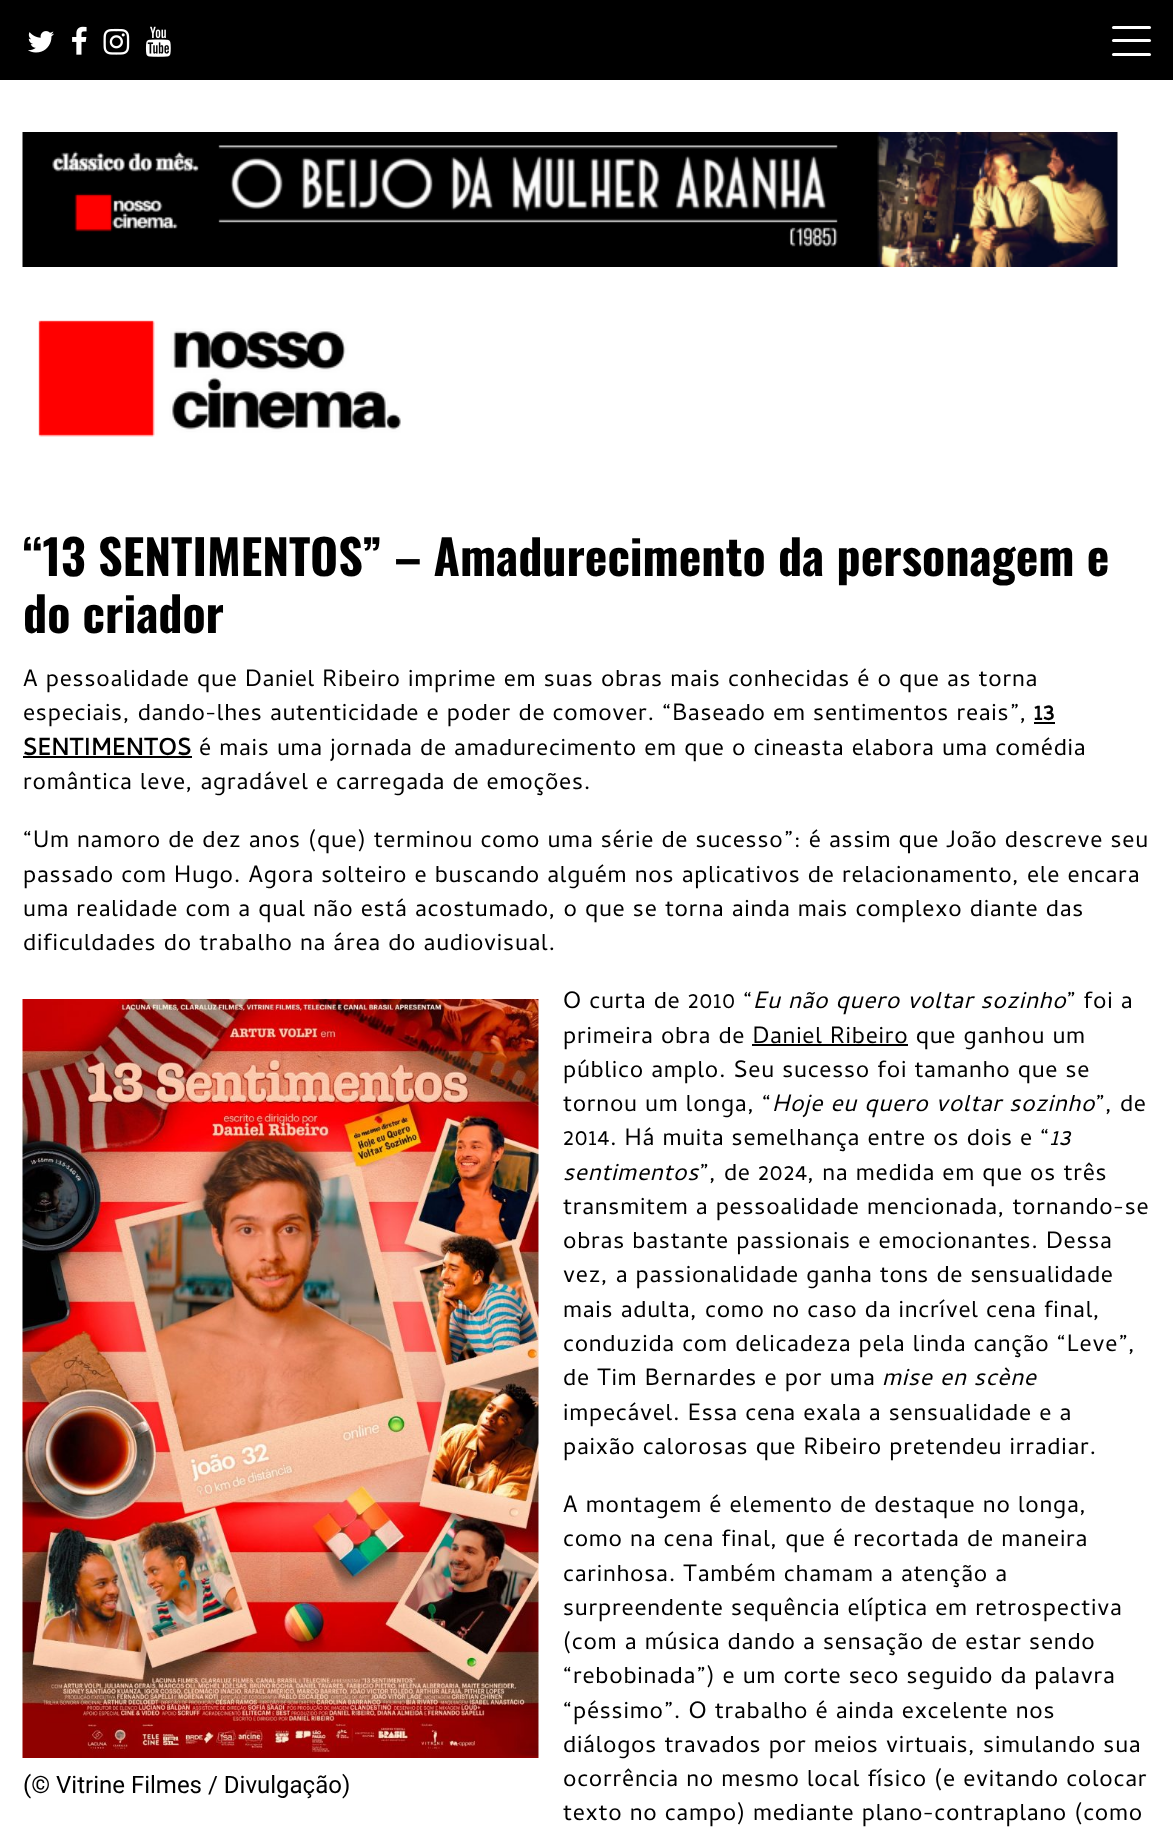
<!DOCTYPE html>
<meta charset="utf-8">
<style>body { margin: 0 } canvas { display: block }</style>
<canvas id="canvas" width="1173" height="1836"></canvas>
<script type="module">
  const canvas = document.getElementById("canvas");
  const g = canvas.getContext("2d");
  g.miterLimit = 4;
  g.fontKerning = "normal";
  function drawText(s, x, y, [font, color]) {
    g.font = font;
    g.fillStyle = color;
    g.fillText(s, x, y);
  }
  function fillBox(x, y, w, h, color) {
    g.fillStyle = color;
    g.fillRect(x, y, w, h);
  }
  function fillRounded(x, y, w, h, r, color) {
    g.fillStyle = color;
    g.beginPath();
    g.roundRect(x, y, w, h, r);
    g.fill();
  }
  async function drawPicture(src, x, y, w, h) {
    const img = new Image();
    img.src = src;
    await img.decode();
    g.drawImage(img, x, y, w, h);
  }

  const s1 = ["bold 48px Oswald", "#000000"];
  const s2 = ["24px Cambay", "#000000"];
  const s3 = ["bold 24px Cambay", "#000000"];
  const s4 = ["italic 24px Cambay", "#000000"];
  const s5 = ["24px Roboto", "#000000"];

  fillBox(0, 0, 1173, 1836, "#FFFFFF");
  fillBox(0, 0, 1173, 80, "#000000");
  await drawPicture("pic1.png", 28, 31, 26, 22);
  await drawPicture("pic2.png", 72, 26, 15, 29);
  await drawPicture("pic3.png", 103, 28, 27, 27);
  await drawPicture("pic4.png", 145, 26, 26, 31);
  fillRounded(1112, 39, 39, 3, 1.5, "#FFFFFF");
  fillRounded(1112, 26, 39, 3, 1.5, "#FFFFFF");
  fillRounded(1112, 53, 39, 3, 1.5, "#FFFFFF");
  await drawPicture("pic5.png", 22, 132, 1096, 135);
  await drawPicture("pic6.png", 38, 320, 363, 117);
  drawText("“13 SENTIMENTOS” – Amadurecimento da personagem e", 23, 576, s1);
  drawText("do criador", 23, 633, s1);
  g.letterSpacing = "0.75px";
  drawText("A pessoalidade que Daniel Ribeiro imprime em suas obras mais conhecidas é o que as torna", 23, 686, s2);
  drawText("especiais, dando-lhes autenticidade e poder de comover. “Baseado em sentimentos reais”,", 23, 720, s2);
  drawText("13", 1034, 720, s3);
  fillBox(1034, 722, 21, 2, "#000000");
  drawText("SENTIMENTOS", 23, 755, s3);
  fillBox(23, 756, 169, 2, "#000000");
  drawText("é mais uma jornada de amadurecimento em que o cineasta elabora uma comédia", 199, 755, s2);
  drawText("romântica leve, agradável e carregada de emoções.", 23, 789, s2);
  drawText("“Um namoro de dez anos (que) terminou como uma série de sucesso”: é assim que João descreve seu", 23, 847, s2);
  drawText("passado com Hugo. Agora solteiro e buscando alguém nos aplicativos de relacionamento, ele encara", 23, 882, s2);
  drawText("uma realidade com a qual não está acostumado, o que se torna ainda mais complexo diante das", 23, 916, s2);
  drawText("dificuldades do trabalho na área do audiovisual.", 23, 950, s2);
  drawText("O curta de 2010 “", 563, 1008, s2);
  drawText("Eu não quero voltar sozinho", 753, 1008, s4);
  drawText("” foi a", 1066, 1008, s2);
  drawText("primeira obra de Daniel Ribeiro que ganhou um", 563, 1043, s2);
  fillBox(752, 1044, 156, 2, "#000000");
  drawText("público amplo. Seu sucesso foi tamanho que se", 563, 1077, s2);
  drawText("tornou um longa, “", 563, 1111, s2);
  drawText("Hoje eu quero voltar sozinho", 772, 1111, s4);
  drawText("”, de", 1095, 1111, s2);
  drawText("2014. Há muita semelhança entre os dois e “", 563, 1145, s2);
  drawText("13", 1050, 1145, s4);
  drawText("sentimentos", 563, 1180, s4);
  drawText("”, de 2024, na medida em que os três", 699, 1180, s2);
  drawText("transmitem a pessoalidade mencionada, tornando-se", 563, 1214, s2);
  drawText("obras bastante passionais e emocionantes. Dessa", 563, 1248, s2);
  drawText("vez, a passionalidade ganha tons de sensualidade", 563, 1282, s2);
  drawText("mais adulta, como no caso da incrível cena final,", 563, 1317, s2);
  drawText("conduzida com delicadeza pela linda canção “Leve”,", 563, 1351, s2);
  drawText("de Tim Bernardes e por uma", 563, 1385, s2);
  drawText("mise en scène", 882, 1385, s4);
  drawText("impecável. Essa cena exala a sensualidade e a", 563, 1420, s2);
  drawText("paixão calorosas que Ribeiro pretendeu irradiar.", 563, 1454, s2);
  await drawPicture("pic7.png", 22, 999, 517, 759);
  g.letterSpacing = "0px";
  drawText("(© Vitrine Filmes / Divulgação)", 23, 1793, s5);
  g.letterSpacing = "0.75px";
  drawText("A montagem é elemento de destaque no longa,", 563, 1512, s2);
  drawText("como na cena final, que é recortada de maneira", 563, 1546, s2);
  drawText("carinhosa. Também chamam a atenção a", 563, 1581, s2);
  drawText("surpreendente sequência elíptica em retrospectiva", 563, 1615, s2);
  drawText("(com a música dando a sensação de estar sendo", 563, 1649, s2);
  drawText("“rebobinada”) e um corte seco seguido da palavra", 563, 1683, s2);
  drawText("“péssimo”. O trabalho é ainda excelente nos", 563, 1718, s2);
  drawText("diálogos travados por meios virtuais, simulando sua", 563, 1752, s2);
  drawText("ocorrência no mesmo local físico (e evitando colocar", 563, 1786, s2);
  drawText("texto no campo) mediante plano-contraplano (como", 563, 1820, s2);
</script>
